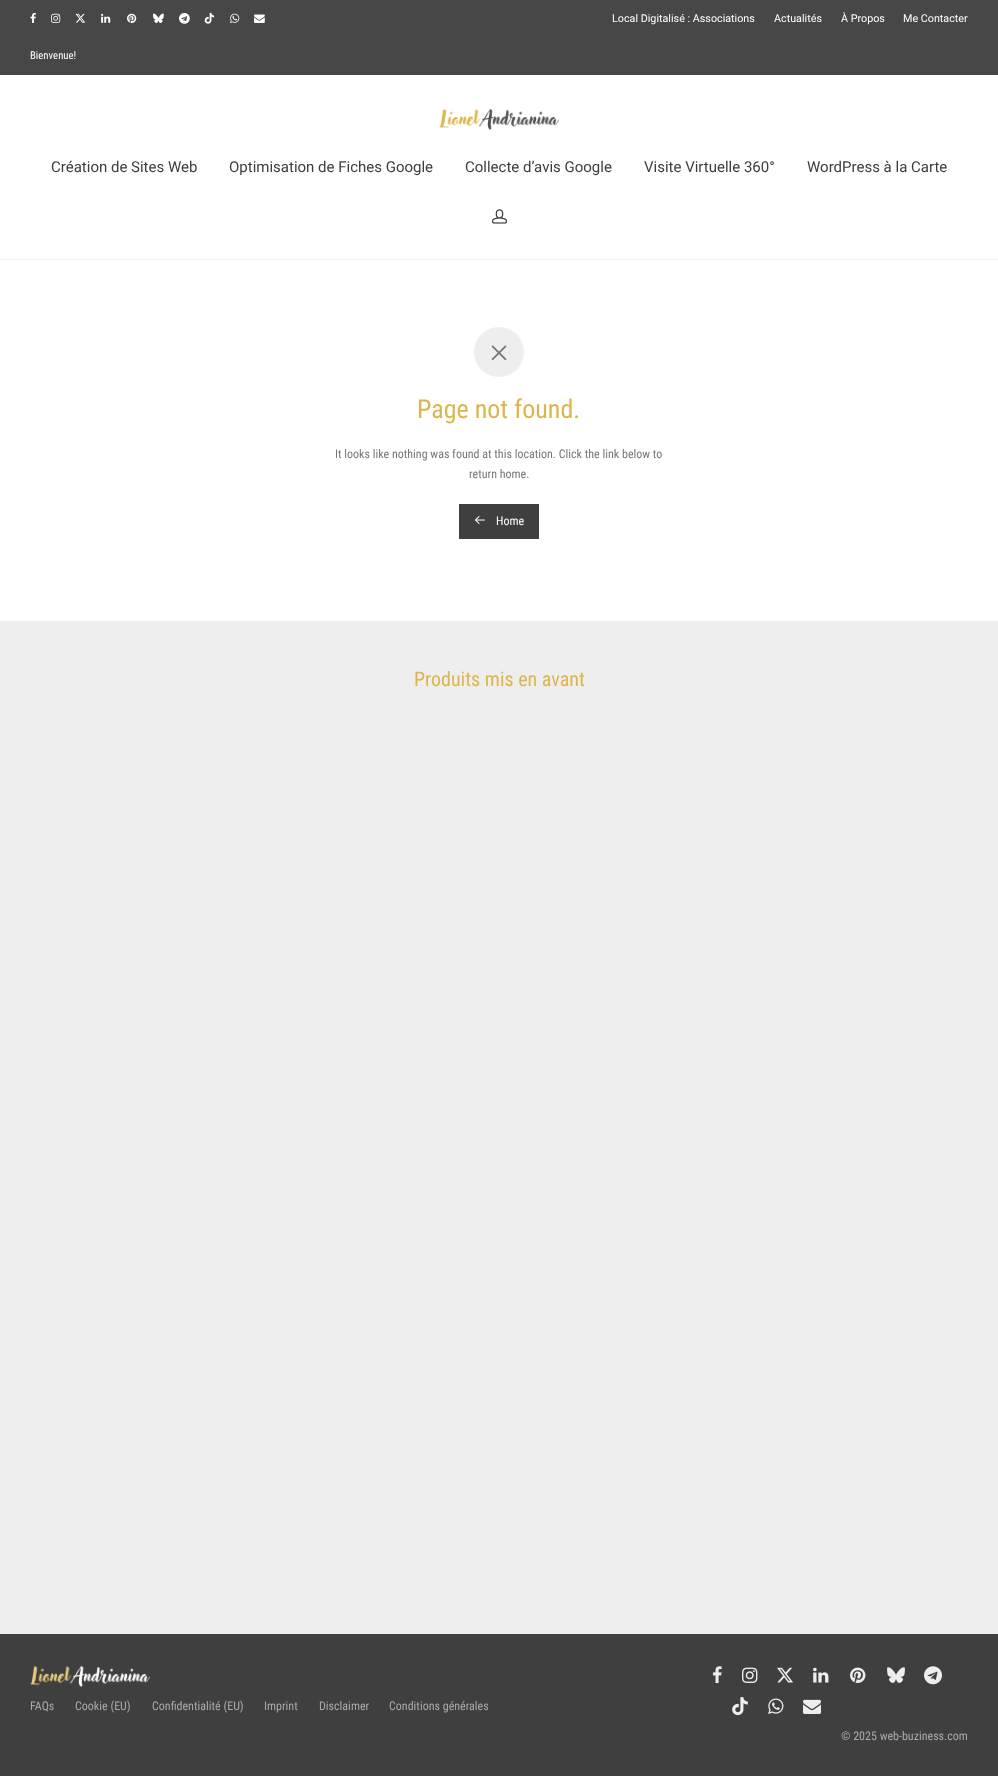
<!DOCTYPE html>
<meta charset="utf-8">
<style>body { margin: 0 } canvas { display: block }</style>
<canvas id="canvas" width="998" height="1776"></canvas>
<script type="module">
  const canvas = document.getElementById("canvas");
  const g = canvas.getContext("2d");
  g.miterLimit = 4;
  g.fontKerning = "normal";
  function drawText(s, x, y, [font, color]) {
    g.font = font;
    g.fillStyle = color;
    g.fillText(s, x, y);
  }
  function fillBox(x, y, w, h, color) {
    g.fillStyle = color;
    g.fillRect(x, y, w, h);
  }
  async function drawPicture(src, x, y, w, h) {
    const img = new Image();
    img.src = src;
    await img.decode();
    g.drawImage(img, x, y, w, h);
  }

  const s1 = ["10.75px Roboto", "#FFFFFF"];
  const s2 = ["10.75px Roboto Condensed", "#FFFFFF"];
  const s3 = ["15px Roboto", "#3D3D3D"];
  const s4 = ["26px Roboto Condensed", "#DDB54C"];
  const s5 = ["12px Roboto Condensed", "#777777"];
  const s6 = ["12px Roboto Condensed", "#FFFFFF"];
  const s7 = ["20px Roboto Condensed", "#DDB54C"];
  const s8 = ["12px Roboto Condensed", "#AAAAAA"];

  fillBox(0, 0, 998, 1776, "#EEEEEE");
  fillBox(0, 0, 998, 75, "#474747");
  drawText("Local Digitalisé : Associations", 612, 22, s1);
  drawText("Actualités", 774, 22, s1);
  drawText("À Propos", 841, 22, s1);
  drawText("Me Contacter", 903, 22, s1);
  await drawPicture("pic1.png", 30, 13, 6, 10);
  await drawPicture("pic2.png", 51, 13, 10, 10);
  await drawPicture("pic3.png", 75, 13, 11, 10);
  await drawPicture("pic4.png", 101, 13, 10, 10);
  await drawPicture("pic5.png", 127, 13, 10, 10);
  await drawPicture("pic6.png", 153, 13, 11, 10);
  await drawPicture("pic7.png", 179, 13, 11, 11);
  await drawPicture("pic8.png", 204, 12, 11, 12);
  await drawPicture("pic9.png", 230, 13, 10, 10);
  await drawPicture("pic10.png", 254, 14, 11, 9);
  drawText("Bienvenue!", 30, 59, s2);
  fillBox(0, 75, 998, 184, "#FFFFFF");
  await drawPicture("pic11.png", 439, 108, 120, 23);
  drawText("Création de Sites Web", 51, 172, s3);
  drawText("Optimisation de Fiches Google", 229, 172, s3);
  drawText("Collecte d’avis Google", 465, 172, s3);
  drawText("Visite Virtuelle 360°", 644, 172, s3);
  drawText("WordPress à la Carte", 807, 172, s3);
  await drawPicture("pic12.png", 492, 209, 15, 15);
  fillBox(0, 260, 998, 361, "#FFFFFF");
  g.fillStyle = "#EEEEEE";
  g.beginPath();
  g.arc(499, 352, 25, 0, Math.PI * 2);
  g.fill();
  await drawPicture("pic13.png", 491, 345, 16, 16);
  drawText("Page not found.", 417, 418, s4);
  drawText("It looks like nothing was found at this location. Click the link below to", 335, 458, s5);
  drawText("return home.", 469, 478, s5);
  fillBox(459, 504, 80, 35, "#3F3F3F");
  await drawPicture("pic14.png", 475, 516, 10, 8);
  drawText("Home", 496, 525, s6);
  drawText("Produits mis en avant", 414, 686, s7);
  fillBox(0, 1634, 998, 142, "#3F3F3F");
  await drawPicture("pic15.png", 30, 1665, 120, 23);
  drawText("FAQs", 30, 1710, s8);
  drawText("Cookie (EU)", 75, 1710, s8);
  drawText("Confidentialité (EU)", 152, 1710, s8);
  drawText("Imprint", 264, 1710, s8);
  drawText("Disclaimer", 319, 1710, s8);
  drawText("Conditions générales", 389, 1710, s8);
  await drawPicture("pic16.png", 712, 1666, 10, 17);
  await drawPicture("pic17.png", 742, 1667, 16, 16);
  await drawPicture("pic18.png", 777, 1667, 16, 16);
  await drawPicture("pic19.png", 813, 1667, 16, 16);
  await drawPicture("pic20.png", 850, 1667, 16, 16);
  await drawPicture("pic21.png", 887, 1667, 18, 16);
  await drawPicture("pic22.png", 924, 1666, 18, 19);
  await drawPicture("pic23.png", 732, 1697, 16, 19);
  await drawPicture("pic24.png", 768, 1698, 16, 16);
  await drawPicture("pic25.png", 803, 1699, 18, 15);
  drawText("© 2025 web-buziness.com", 841, 1740, s8);
</script>
